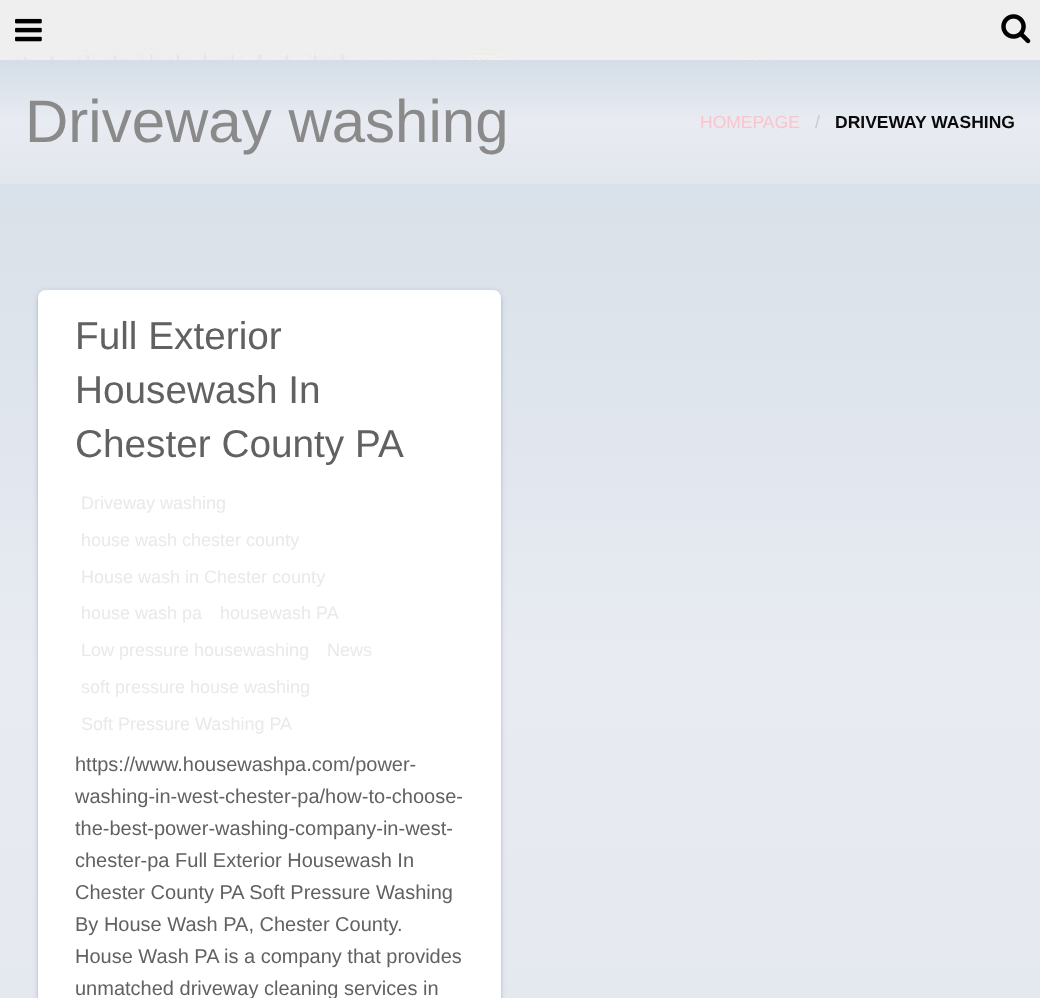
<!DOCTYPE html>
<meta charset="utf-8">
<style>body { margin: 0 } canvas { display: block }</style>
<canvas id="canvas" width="1040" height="998"></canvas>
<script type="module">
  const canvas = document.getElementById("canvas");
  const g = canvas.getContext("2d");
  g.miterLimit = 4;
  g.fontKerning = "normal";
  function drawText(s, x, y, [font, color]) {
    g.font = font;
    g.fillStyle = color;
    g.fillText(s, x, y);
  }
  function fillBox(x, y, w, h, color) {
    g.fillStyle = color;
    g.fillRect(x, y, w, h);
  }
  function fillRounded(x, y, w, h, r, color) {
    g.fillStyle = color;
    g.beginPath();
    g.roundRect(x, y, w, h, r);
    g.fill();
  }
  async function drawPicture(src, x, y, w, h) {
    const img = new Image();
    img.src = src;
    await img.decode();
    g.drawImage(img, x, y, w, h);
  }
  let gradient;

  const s1 = ["60px Liberation Sans", "#8A8A8A"];
  const s2 = ["17.5px Liberation Sans", "#FFC2CA"];
  const s3 = ["17.5px Liberation Sans", "#CACACA"];
  const s4 = ["bold 17.5px Liberation Sans", "#0A0A0A"];
  const s5 = ["38.75px Liberation Sans", "#616161"];
  const s6 = ["18px Liberation Sans", "#E9E9E9"];
  const s7 = ["20px Liberation Sans", "#616161"];

  fillBox(0, 0, 1040, 998, "#FFFFFF");
  await drawPicture("pic1.png", 0, 0, 1040, 60);
  await drawPicture("pic2.png", 15, 18, 27, 24);
  await drawPicture("pic3.png", 1001, 14, 30, 30);
  gradient = g.createLinearGradient(520, 60, 520, 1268);
  gradient.addColorStop(0, "#D5DEE7");
  gradient.addColorStop(0.5, "#E8EBF2");
  gradient.addColorStop(1, "#E2E7ED");
  g.fillStyle = gradient;
  g.fillRect(0, 184, 1040, 814);
  gradient = g.createLinearGradient(520, 60, 520, 184);
  gradient.addColorStop(0, "#D5DEE7");
  gradient.addColorStop(0.5, "#E8EBF2");
  gradient.addColorStop(1, "#E2E7ED");
  g.fillStyle = gradient;
  g.fillRect(0, 60, 1040, 124);
  drawText("Driveway washing", 25, 142, s1);
  drawText("HOMEPAGE", 700, 128, s2);
  drawText("/", 815, 128, s3);
  drawText("DRIVEWAY WASHING", 835, 128, s4);
  g.fillStyle = "rgba(0, 0, 0, 0.12)";
  g.filter = "blur(3px)";
  g.beginPath();
  g.roundRect(38, 291, 463, 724, 8);
  g.fill();
  g.filter = "none";
  g.fillStyle = "rgba(0, 0, 0, 0.14)";
  g.filter = "blur(1px)";
  g.beginPath();
  g.roundRect(38, 293, 463, 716, 8);
  g.fill();
  g.filter = "none";
  fillRounded(38, 290, 463, 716, 8, "#FFFFFF");
  drawText("Full Exterior", 75, 349, s5);
  drawText("Housewash In", 75, 403, s5);
  drawText("Chester County PA", 75, 457, s5);
  drawText("Driveway washing", 81, 509, s6);
  drawText("house wash chester county", 81, 546, s6);
  drawText("House wash in Chester county", 81, 583, s6);
  drawText("house wash pa", 81, 619, s6);
  drawText("housewash PA", 220, 619, s6);
  drawText("Low pressure housewashing", 81, 656, s6);
  drawText("News", 327, 656, s6);
  drawText("soft pressure house washing", 81, 693, s6);
  drawText("Soft Pressure Washing PA", 81, 730, s6);
  drawText("https://www.housewashpa.com/power-", 75, 771, s7);
  drawText("washing-in-west-chester-pa/how-to-choose-", 75, 803, s7);
  drawText("the-best-power-washing-company-in-west-", 75, 835, s7);
  drawText("chester-pa Full Exterior Housewash In", 75, 867, s7);
  drawText("Chester County PA Soft Pressure Washing", 75, 899, s7);
  drawText("By House Wash PA, Chester County.", 75, 931, s7);
  drawText("House Wash PA is a company that provides", 75, 963, s7);
  drawText("unmatched driveway cleaning services in", 75, 995, s7);
</script>
